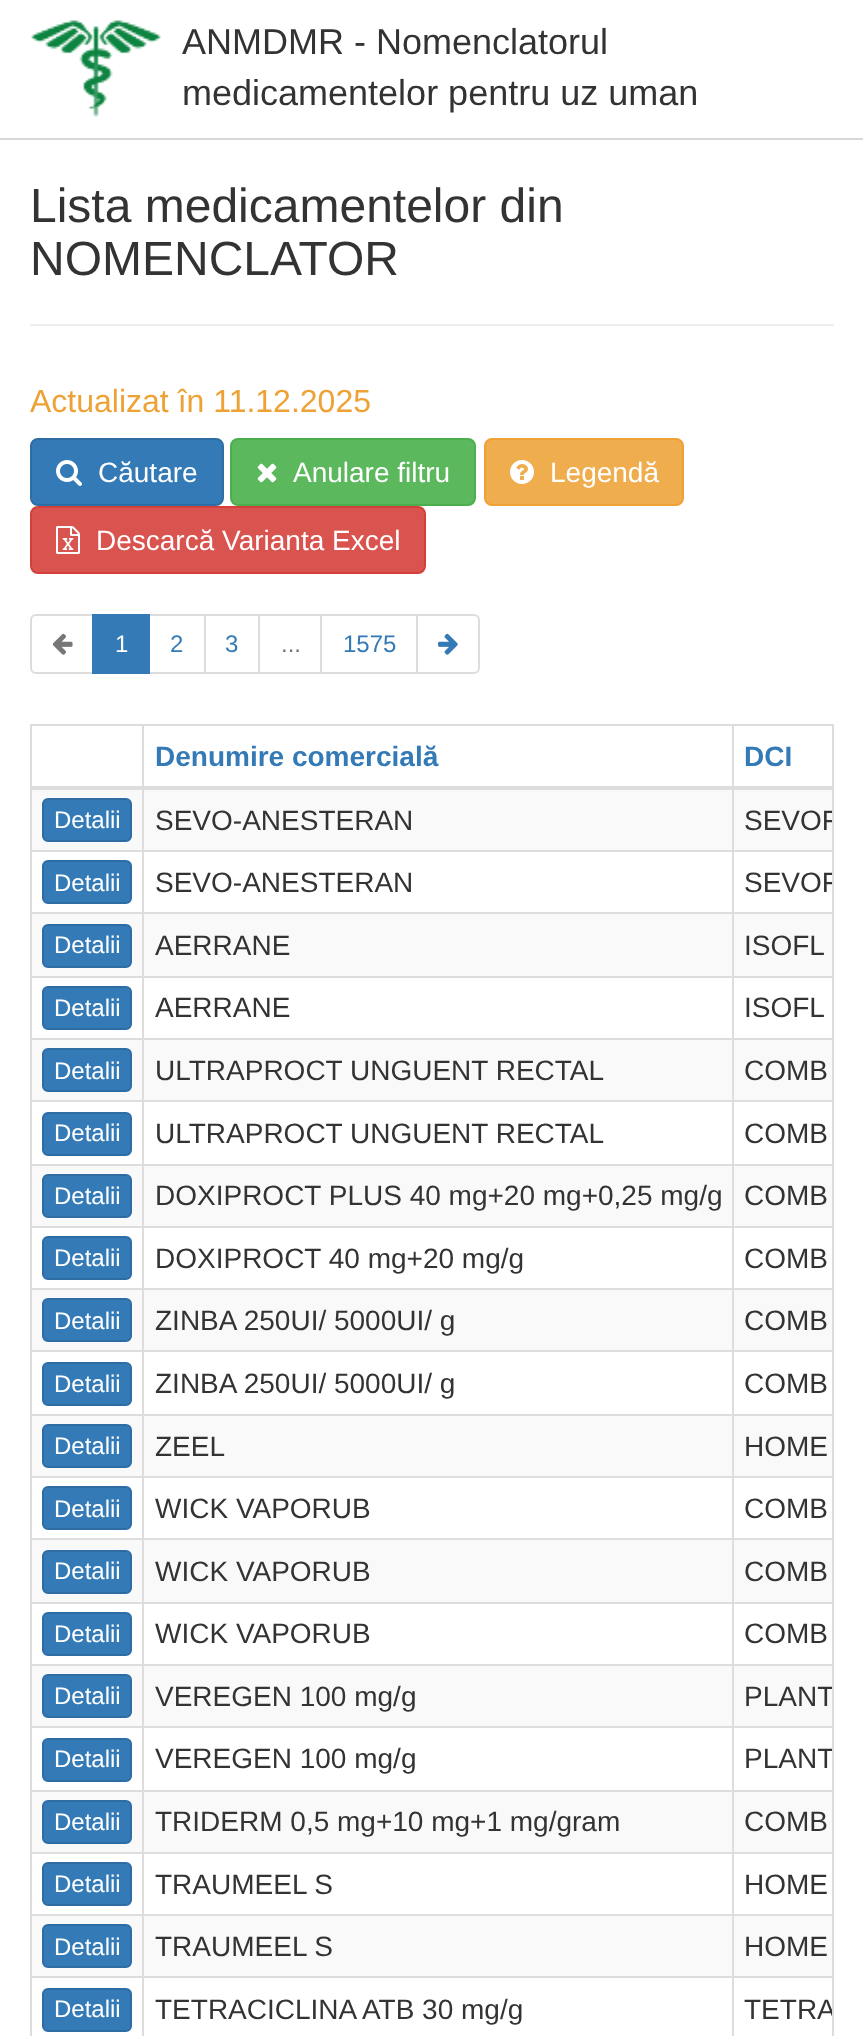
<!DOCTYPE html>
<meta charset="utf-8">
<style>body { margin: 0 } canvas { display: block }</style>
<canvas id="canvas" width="863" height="2036"></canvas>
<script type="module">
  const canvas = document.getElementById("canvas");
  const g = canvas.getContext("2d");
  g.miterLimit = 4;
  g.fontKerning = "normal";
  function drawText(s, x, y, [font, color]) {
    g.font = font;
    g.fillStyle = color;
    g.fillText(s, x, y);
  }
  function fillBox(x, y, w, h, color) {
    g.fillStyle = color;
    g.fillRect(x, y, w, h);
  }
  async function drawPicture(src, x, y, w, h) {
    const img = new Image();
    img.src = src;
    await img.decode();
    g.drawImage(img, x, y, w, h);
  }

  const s1 = ["36px Liberation Sans", "#333333"];
  const s2 = ["48px Liberation Sans", "#333333"];
  const s3 = ["32px Liberation Sans", "#EEA236"];
  const s4 = ["28px Liberation Sans", "#FFFFFF"];
  const s5 = ["24px Liberation Sans", "#FFFFFF"];
  const s6 = ["24px Liberation Sans", "#337AB7"];
  const s7 = ["24px Liberation Sans", "#777777"];
  const s8 = ["bold 28px Liberation Sans", "#337AB7"];
  const s9 = ["28px Liberation Sans", "#333333"];

  fillBox(0, 0, 863, 2036, "#FFFFFF");
  fillBox(0, 138, 863, 2, "#D8D8D8");
  await drawPicture("pic1.png", 31, 20, 130, 97);
  drawText("ANMDMR - Nomenclatorul", 182, 54, s1);
  drawText("medicamentelor pentru uz uman", 182, 105, s1);
  fillBox(30, 324, 804, 2, "#EEEEEE");
  drawText("Lista medicamentelor din", 30, 222, s2);
  drawText("NOMENCLATOR", 30, 275, s2);
  drawText("Actualizat în 11.12.2025", 30, 412, s3);
  g.fillStyle = "#337AB7";
  g.beginPath();
  g.roundRect(31, 439, 192, 66, 7);
  g.fill();
  g.strokeStyle = "#2E6DA4";
  g.lineWidth = 2;
  g.stroke();
  await drawPicture("pic2.png", 56, 460, 26, 26);
  drawText("Căutare", 98, 482, s4);
  g.fillStyle = "#5CB85C";
  g.beginPath();
  g.roundRect(231, 439, 244, 66, 7);
  g.fill();
  g.strokeStyle = "#4CAE4C";
  g.stroke();
  await drawPicture("pic3.png", 257, 463, 20, 20);
  drawText("Anulare filtru", 293, 482, s4);
  g.fillStyle = "#F0AD4E";
  g.beginPath();
  g.roundRect(485, 439, 198, 66, 7);
  g.fill();
  g.strokeStyle = "#EEA236";
  g.stroke();
  await drawPicture("pic4.png", 510, 460, 24, 24);
  drawText("Legendă", 550, 482, s4);
  g.fillStyle = "#D9534F";
  g.beginPath();
  g.roundRect(31, 507, 394, 66, 7);
  g.fill();
  g.strokeStyle = "#D43F3A";
  g.stroke();
  await drawPicture("pic5.png", 56, 526, 24, 28);
  drawText("Descarcă Varianta Excel", 96, 550, s4);
  g.beginPath();
  g.roundRect(31, 615, 62, 58, [5, 0, 0, 5]);
  g.strokeStyle = "#DDDDDD";
  g.stroke();
  await drawPicture("pic6.png", 52, 633, 21, 22);
  g.strokeRect(149, 615, 56, 58);
  fillBox(92, 614, 58, 60, "#337AB7");
  drawText("1", 115, 652, s5);
  drawText("2", 170, 652, s6);
  g.strokeRect(205, 615, 54, 58);
  drawText("3", 225, 652, s6);
  g.strokeRect(259, 615, 62, 58);
  drawText("...", 281, 652, s7);
  g.strokeRect(321, 615, 96, 58);
  drawText("1575", 343, 652, s6);
  g.fillStyle = "#FFFFFF";
  g.beginPath();
  g.roundRect(417, 615, 62, 58, [0, 5, 5, 0]);
  g.fill();
  g.stroke();
  await drawPicture("pic7.png", 438, 633, 20, 22);
  g.strokeRect(31, 725, 802, 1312);
  drawText("Denumire comercială", 155, 766, s8);
  fillBox(32, 790, 800, 60, "#F9F9F9");
  fillBox(732, 850, 100, 2, "#DDDDDD");
  fillBox(732, 912, 100, 2, "#DDDDDD");
  fillBox(32, 914, 800, 62, "#F9F9F9");
  fillBox(732, 976, 100, 2, "#DDDDDD");
  fillBox(732, 1038, 100, 2, "#DDDDDD");
  fillBox(32, 1040, 800, 60, "#F9F9F9");
  fillBox(732, 1100, 100, 2, "#DDDDDD");
  fillBox(732, 1164, 100, 2, "#DDDDDD");
  fillBox(32, 1166, 800, 60, "#F9F9F9");
  fillBox(732, 1226, 100, 2, "#DDDDDD");
  fillBox(732, 1288, 100, 2, "#DDDDDD");
  fillBox(32, 1290, 800, 60, "#F9F9F9");
  fillBox(732, 1350, 100, 2, "#DDDDDD");
  fillBox(732, 1414, 100, 2, "#DDDDDD");
  fillBox(32, 1416, 800, 60, "#F9F9F9");
  fillBox(732, 1476, 100, 2, "#DDDDDD");
  fillBox(732, 1538, 100, 2, "#DDDDDD");
  fillBox(32, 1540, 800, 62, "#F9F9F9");
  fillBox(732, 1602, 100, 2, "#DDDDDD");
  fillBox(732, 1664, 100, 2, "#DDDDDD");
  fillBox(32, 1666, 800, 60, "#F9F9F9");
  fillBox(732, 1726, 100, 2, "#DDDDDD");
  fillBox(732, 1790, 100, 2, "#DDDDDD");
  fillBox(32, 1792, 800, 60, "#F9F9F9");
  fillBox(732, 1852, 100, 2, "#DDDDDD");
  fillBox(732, 1914, 100, 2, "#DDDDDD");
  fillBox(32, 1916, 800, 60, "#F9F9F9");
  fillBox(732, 1976, 100, 2, "#DDDDDD");
  fillBox(732, 1976, 2, 60, "#DDDDDD");
  fillBox(142, 1976, 592, 2, "#DDDDDD");
  fillBox(732, 1914, 2, 64, "#DDDDDD");
  fillBox(142, 1914, 592, 2, "#DDDDDD");
  fillBox(732, 1852, 2, 64, "#DDDDDD");
  fillBox(142, 1852, 592, 2, "#DDDDDD");
  fillBox(732, 1790, 2, 64, "#DDDDDD");
  fillBox(142, 1790, 592, 2, "#DDDDDD");
  fillBox(732, 1726, 2, 66, "#DDDDDD");
  fillBox(142, 1726, 592, 2, "#DDDDDD");
  fillBox(732, 1664, 2, 64, "#DDDDDD");
  fillBox(142, 1664, 592, 2, "#DDDDDD");
  fillBox(732, 1602, 2, 64, "#DDDDDD");
  fillBox(142, 1602, 592, 2, "#DDDDDD");
  fillBox(732, 1538, 2, 66, "#DDDDDD");
  fillBox(142, 1538, 592, 2, "#DDDDDD");
  fillBox(732, 1476, 2, 64, "#DDDDDD");
  fillBox(142, 1476, 592, 2, "#DDDDDD");
  fillBox(732, 1414, 2, 64, "#DDDDDD");
  fillBox(142, 1414, 592, 2, "#DDDDDD");
  fillBox(732, 1350, 2, 66, "#DDDDDD");
  fillBox(142, 1350, 592, 2, "#DDDDDD");
  fillBox(732, 1288, 2, 64, "#DDDDDD");
  fillBox(142, 1288, 592, 2, "#DDDDDD");
  fillBox(732, 1226, 2, 64, "#DDDDDD");
  fillBox(142, 1226, 592, 2, "#DDDDDD");
  fillBox(732, 1164, 2, 64, "#DDDDDD");
  fillBox(142, 1164, 592, 2, "#DDDDDD");
  fillBox(732, 1100, 2, 66, "#DDDDDD");
  fillBox(142, 1100, 592, 2, "#DDDDDD");
  fillBox(732, 1038, 2, 64, "#DDDDDD");
  fillBox(142, 1038, 592, 2, "#DDDDDD");
  fillBox(732, 976, 2, 64, "#DDDDDD");
  fillBox(142, 976, 592, 2, "#DDDDDD");
  fillBox(732, 912, 2, 66, "#DDDDDD");
  fillBox(142, 912, 592, 2, "#DDDDDD");
  fillBox(732, 850, 2, 64, "#DDDDDD");
  fillBox(142, 850, 592, 2, "#DDDDDD");
  fillBox(142, 1976, 2, 60, "#DDDDDD");
  fillBox(32, 1976, 112, 2, "#DDDDDD");
  fillBox(142, 1914, 2, 64, "#DDDDDD");
  fillBox(32, 1914, 112, 2, "#DDDDDD");
  fillBox(142, 1852, 2, 64, "#DDDDDD");
  fillBox(32, 1852, 112, 2, "#DDDDDD");
  fillBox(142, 1790, 2, 64, "#DDDDDD");
  fillBox(32, 1790, 112, 2, "#DDDDDD");
  fillBox(142, 1726, 2, 66, "#DDDDDD");
  fillBox(32, 1726, 112, 2, "#DDDDDD");
  fillBox(142, 1664, 2, 64, "#DDDDDD");
  fillBox(32, 1664, 112, 2, "#DDDDDD");
  fillBox(142, 1602, 2, 64, "#DDDDDD");
  fillBox(32, 1602, 112, 2, "#DDDDDD");
  fillBox(142, 1538, 2, 66, "#DDDDDD");
  fillBox(32, 1538, 112, 2, "#DDDDDD");
  fillBox(142, 1476, 2, 64, "#DDDDDD");
  fillBox(32, 1476, 112, 2, "#DDDDDD");
  fillBox(142, 1414, 2, 64, "#DDDDDD");
  fillBox(32, 1414, 112, 2, "#DDDDDD");
  fillBox(142, 1350, 2, 66, "#DDDDDD");
  fillBox(32, 1350, 112, 2, "#DDDDDD");
  fillBox(142, 1288, 2, 64, "#DDDDDD");
  fillBox(32, 1288, 112, 2, "#DDDDDD");
  fillBox(142, 1226, 2, 64, "#DDDDDD");
  fillBox(32, 1226, 112, 2, "#DDDDDD");
  fillBox(142, 1164, 2, 64, "#DDDDDD");
  fillBox(32, 1164, 112, 2, "#DDDDDD");
  fillBox(142, 1100, 2, 66, "#DDDDDD");
  fillBox(32, 1100, 112, 2, "#DDDDDD");
  fillBox(142, 1038, 2, 64, "#DDDDDD");
  fillBox(32, 1038, 112, 2, "#DDDDDD");
  fillBox(142, 976, 2, 64, "#DDDDDD");
  fillBox(32, 976, 112, 2, "#DDDDDD");
  fillBox(142, 912, 2, 66, "#DDDDDD");
  fillBox(32, 912, 112, 2, "#DDDDDD");
  fillBox(142, 850, 2, 64, "#DDDDDD");
  fillBox(32, 850, 112, 2, "#DDDDDD");
  fillBox(142, 726, 2, 126, "#DDDDDD");
  fillBox(732, 726, 2, 126, "#DDDDDD");
  fillBox(32, 786, 800, 4, "#DDDDDD");
  drawText("DCI", 744, 766, s8);
  g.beginPath();
  g.roundRect(43, 799, 88, 42, 5);
  g.fill();
  g.strokeStyle = "#2E6DA4";
  g.stroke();
  drawText("Detalii", 54, 828, s5);
  drawText("SEVO-ANESTERAN", 155, 830, s9);
  g.save();
  g.beginPath();
  g.rect(32, 726, 800, 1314);
  g.clip();
  drawText("SEVOF", 744, 830, s9);
  g.restore();
  g.fillStyle = "#337AB7";
  g.beginPath();
  g.roundRect(43, 861, 88, 42, 5);
  g.fill();
  g.stroke();
  drawText("Detalii", 54, 891, s5);
  drawText("SEVO-ANESTERAN", 155, 892, s9);
  g.save();
  g.beginPath();
  g.rect(32, 726, 800, 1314);
  g.clip();
  drawText("SEVOF", 744, 892, s9);
  g.restore();
  g.fillStyle = "#337AB7";
  g.beginPath();
  g.roundRect(43, 925, 88, 42, 5);
  g.fill();
  g.stroke();
  drawText("Detalii", 54, 953, s5);
  drawText("AERRANE", 155, 955, s9);
  drawText("ISOFL", 744, 955, s9);
  g.fillStyle = "#337AB7";
  g.beginPath();
  g.roundRect(43, 987, 88, 42, 5);
  g.fill();
  g.stroke();
  drawText("Detalii", 54, 1016, s5);
  drawText("AERRANE", 155, 1017, s9);
  drawText("ISOFL", 744, 1017, s9);
  g.fillStyle = "#337AB7";
  g.beginPath();
  g.roundRect(43, 1049, 88, 42, 5);
  g.fill();
  g.stroke();
  drawText("Detalii", 54, 1079, s5);
  drawText("ULTRAPROCT UNGUENT RECTAL", 155, 1080, s9);
  drawText("COMB", 744, 1080, s9);
  g.fillStyle = "#337AB7";
  g.beginPath();
  g.roundRect(43, 1113, 88, 42, 5);
  g.fill();
  g.stroke();
  drawText("Detalii", 54, 1141, s5);
  drawText("ULTRAPROCT UNGUENT RECTAL", 155, 1143, s9);
  drawText("COMB", 744, 1143, s9);
  g.fillStyle = "#337AB7";
  g.beginPath();
  g.roundRect(43, 1175, 88, 42, 5);
  g.fill();
  g.stroke();
  drawText("Detalii", 54, 1204, s5);
  drawText("DOXIPROCT PLUS 40 mg+20 mg+0,25 mg/g", 155, 1205, s9);
  drawText("COMB", 744, 1205, s9);
  g.fillStyle = "#337AB7";
  g.beginPath();
  g.roundRect(43, 1237, 88, 42, 5);
  g.fill();
  g.stroke();
  drawText("Detalii", 54, 1266, s5);
  drawText("DOXIPROCT 40 mg+20 mg/g", 155, 1268, s9);
  drawText("COMB", 744, 1268, s9);
  g.fillStyle = "#337AB7";
  g.beginPath();
  g.roundRect(43, 1299, 88, 42, 5);
  g.fill();
  g.stroke();
  drawText("Detalii", 54, 1329, s5);
  drawText("ZINBA 250UI/ 5000UI/ g", 155, 1330, s9);
  drawText("COMB", 744, 1330, s9);
  g.fillStyle = "#337AB7";
  g.beginPath();
  g.roundRect(43, 1363, 88, 42, 5);
  g.fill();
  g.stroke();
  drawText("Detalii", 54, 1392, s5);
  drawText("ZINBA 250UI/ 5000UI/ g", 155, 1393, s9);
  drawText("COMB", 744, 1393, s9);
  g.fillStyle = "#337AB7";
  g.beginPath();
  g.roundRect(43, 1425, 88, 42, 5);
  g.fill();
  g.stroke();
  drawText("Detalii", 54, 1454, s5);
  drawText("ZEEL", 155, 1456, s9);
  drawText("HOME", 744, 1456, s9);
  g.fillStyle = "#337AB7";
  g.beginPath();
  g.roundRect(43, 1487, 88, 42, 5);
  g.fill();
  g.stroke();
  drawText("Detalii", 54, 1517, s5);
  drawText("WICK VAPORUB", 155, 1518, s9);
  drawText("COMB", 744, 1518, s9);
  g.fillStyle = "#337AB7";
  g.beginPath();
  g.roundRect(43, 1551, 88, 42, 5);
  g.fill();
  g.stroke();
  drawText("Detalii", 54, 1579, s5);
  drawText("WICK VAPORUB", 155, 1581, s9);
  drawText("COMB", 744, 1581, s9);
  g.fillStyle = "#337AB7";
  g.beginPath();
  g.roundRect(43, 1613, 88, 42, 5);
  g.fill();
  g.stroke();
  drawText("Detalii", 54, 1642, s5);
  drawText("WICK VAPORUB", 155, 1643, s9);
  drawText("COMB", 744, 1643, s9);
  g.fillStyle = "#337AB7";
  g.beginPath();
  g.roundRect(43, 1675, 88, 42, 5);
  g.fill();
  g.stroke();
  drawText("Detalii", 54, 1704, s5);
  drawText("VEREGEN 100 mg/g", 155, 1706, s9);
  g.save();
  g.beginPath();
  g.rect(32, 726, 800, 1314);
  g.clip();
  drawText("PLANT", 744, 1706, s9);
  g.restore();
  g.fillStyle = "#337AB7";
  g.beginPath();
  g.roundRect(43, 1739, 88, 42, 5);
  g.fill();
  g.stroke();
  drawText("Detalii", 54, 1767, s5);
  drawText("VEREGEN 100 mg/g", 155, 1768, s9);
  g.save();
  g.beginPath();
  g.rect(32, 726, 800, 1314);
  g.clip();
  drawText("PLANT", 744, 1768, s9);
  g.restore();
  g.fillStyle = "#337AB7";
  g.beginPath();
  g.roundRect(43, 1801, 88, 42, 5);
  g.fill();
  g.stroke();
  drawText("Detalii", 54, 1830, s5);
  drawText("TRIDERM 0,5 mg+10 mg+1 mg/gram", 155, 1831, s9);
  drawText("COMB", 744, 1831, s9);
  g.fillStyle = "#337AB7";
  g.beginPath();
  g.roundRect(43, 1863, 88, 42, 5);
  g.fill();
  g.stroke();
  drawText("Detalii", 54, 1892, s5);
  drawText("TRAUMEEL S", 155, 1894, s9);
  drawText("HOME", 744, 1894, s9);
  g.fillStyle = "#337AB7";
  g.beginPath();
  g.roundRect(43, 1925, 88, 42, 5);
  g.fill();
  g.stroke();
  drawText("Detalii", 54, 1955, s5);
  drawText("TRAUMEEL S", 155, 1956, s9);
  drawText("HOME", 744, 1956, s9);
  g.fillStyle = "#337AB7";
  g.beginPath();
  g.roundRect(43, 1989, 88, 42, 5);
  g.fill();
  g.stroke();
  drawText("Detalii", 54, 2017, s5);
  drawText("TETRACICLINA ATB 30 mg/g", 155, 2019, s9);
  g.save();
  g.beginPath();
  g.rect(32, 726, 800, 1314);
  g.clip();
  drawText("TETRA", 744, 2019, s9);
  g.restore();
</script>
